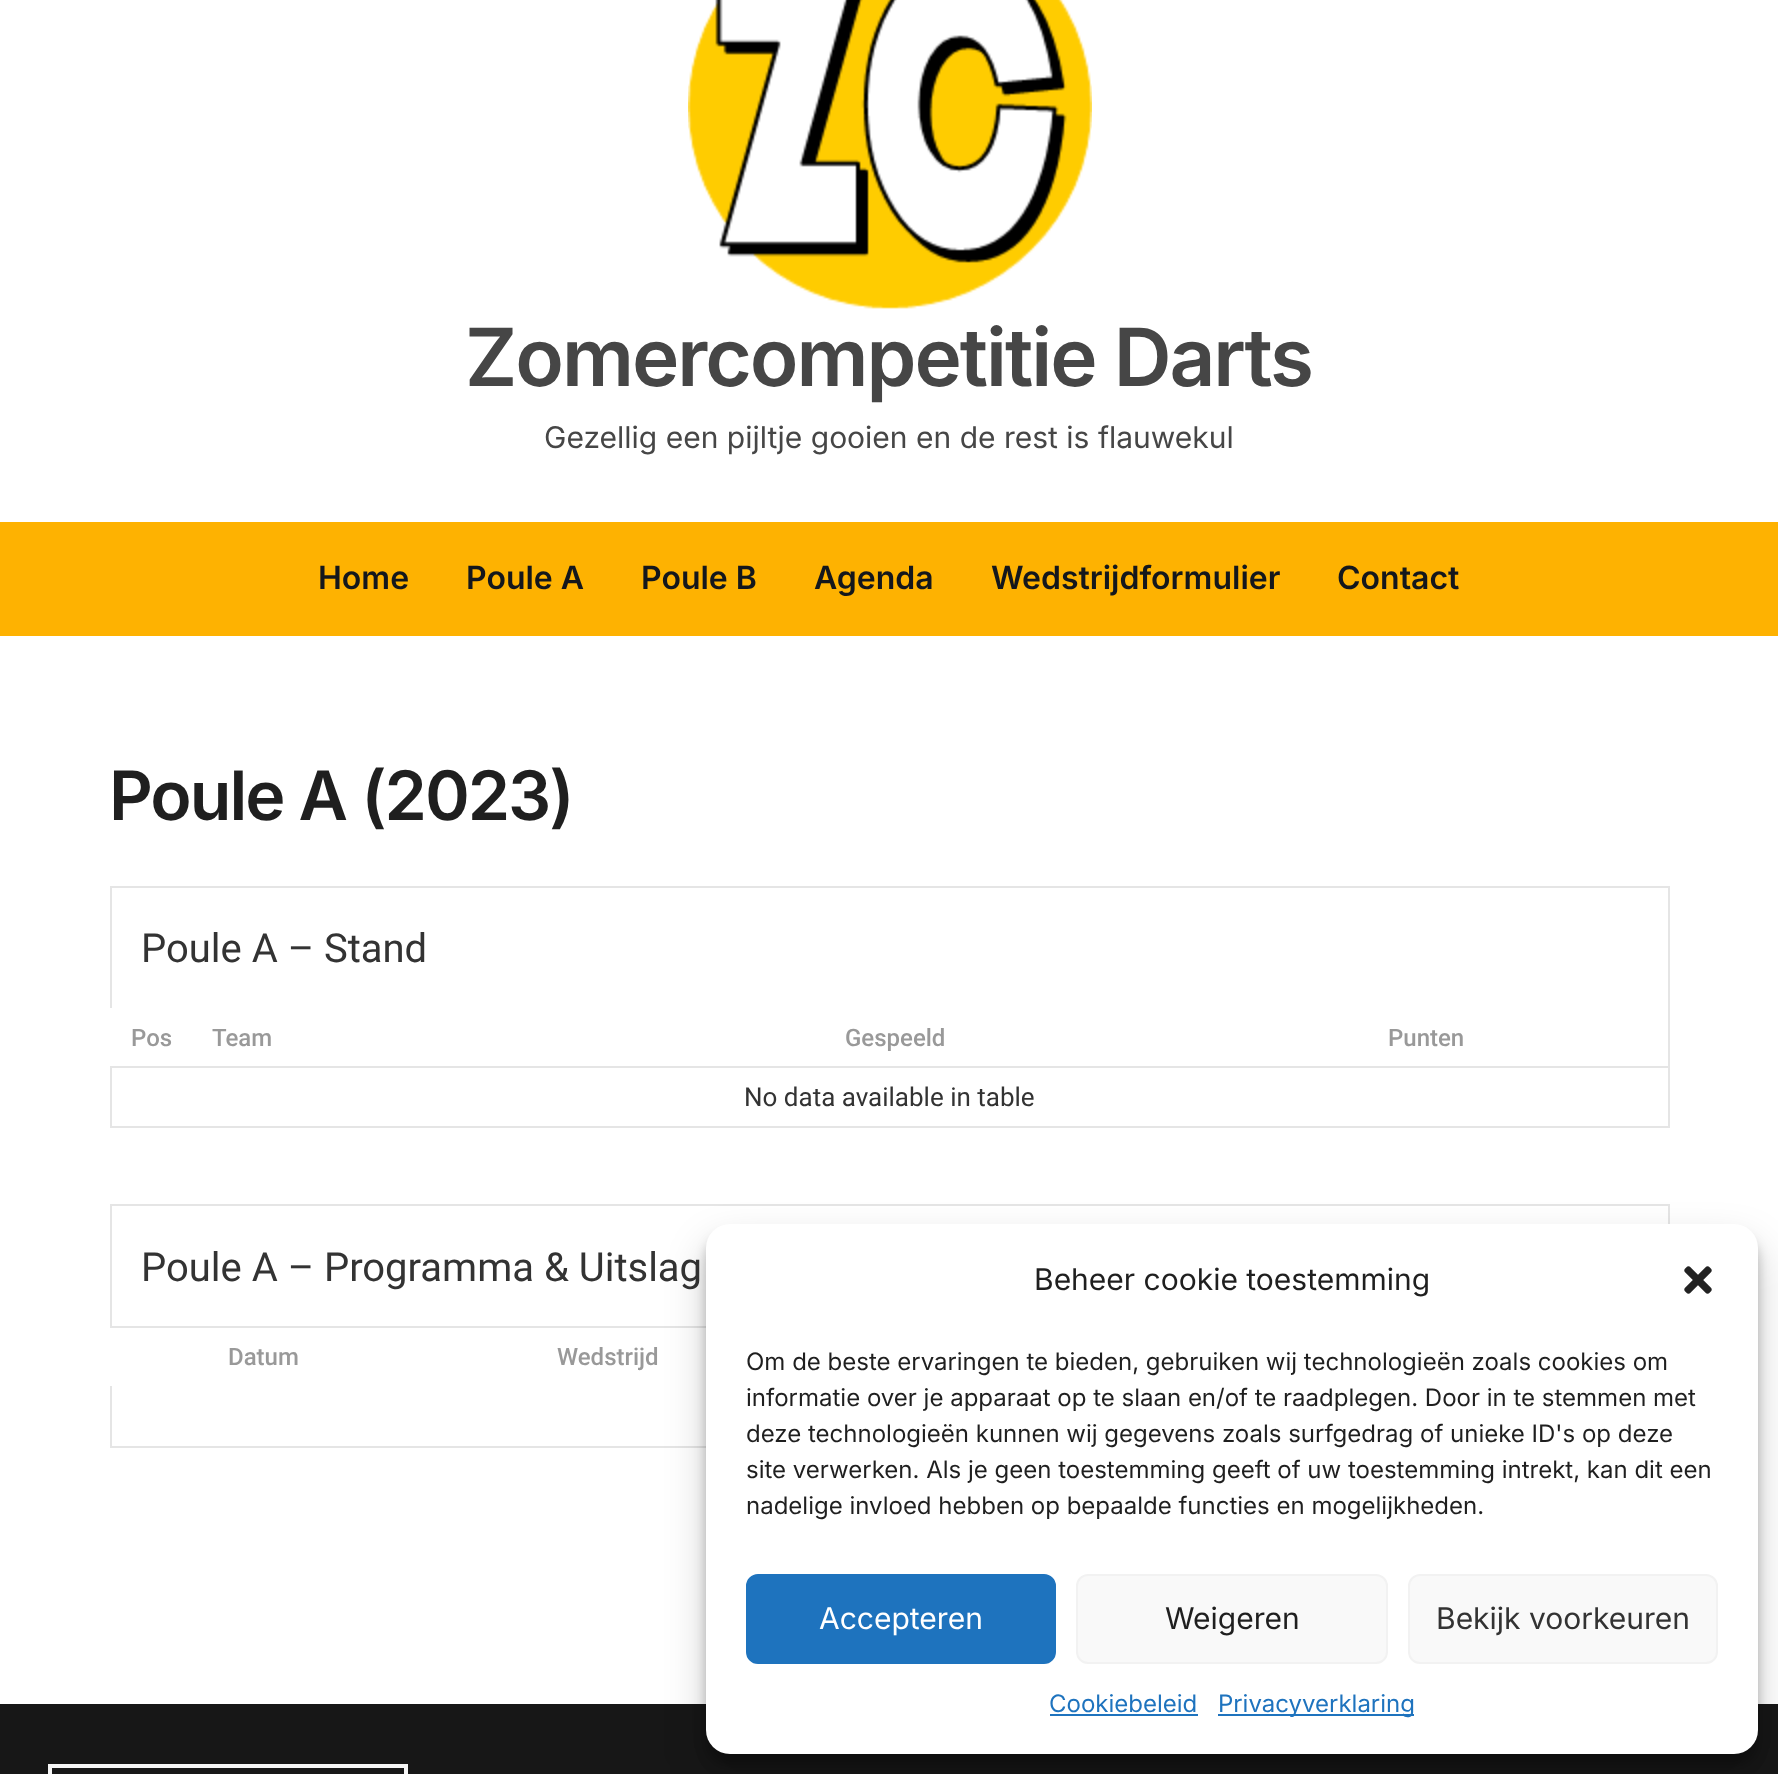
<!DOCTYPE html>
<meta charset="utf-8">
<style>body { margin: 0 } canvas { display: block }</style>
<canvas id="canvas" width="1778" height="1774"></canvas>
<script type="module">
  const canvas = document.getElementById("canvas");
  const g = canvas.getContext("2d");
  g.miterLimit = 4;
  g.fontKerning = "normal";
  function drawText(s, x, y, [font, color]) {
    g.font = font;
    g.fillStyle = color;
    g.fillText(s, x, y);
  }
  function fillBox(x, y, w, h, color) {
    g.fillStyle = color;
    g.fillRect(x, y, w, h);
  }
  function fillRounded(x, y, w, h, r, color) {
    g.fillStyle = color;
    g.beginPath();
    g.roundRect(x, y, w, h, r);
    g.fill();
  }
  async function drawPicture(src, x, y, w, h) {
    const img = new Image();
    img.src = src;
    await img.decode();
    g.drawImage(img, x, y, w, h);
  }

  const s1 = ["600 80px Inter", "#464646"];
  const s2 = ["30px Inter", "#464646"];
  const s3 = ["600 32px Inter", "#14171C"];
  const s4 = ["600 68px Inter", "#1F1F1F"];
  const s5 = ["40px Roboto", "#333333"];
  const s6 = ["500 24px Roboto", "#999999"];
  const s7 = ["26px Roboto", "#333333"];
  const s8 = ["30px Inter", "#1F1F1F"];
  const s9 = ["24px Inter", "#1F1F1F"];
  const s10 = ["30px Inter", "#FFFFFF"];
  const s11 = ["30px Inter", "#333333"];
  const s12 = ["24px Inter", "#1E73BE"];

  fillBox(0, 0, 1778, 1774, "#FFFFFF");
  await drawPicture("pic1.png", 688, 0, 404, 309);
  g.letterSpacing = "-2px";
  drawText("Zomercompetitie Darts", 465, 386, s1);
  g.letterSpacing = "0px";
  drawText("Gezellig een pijltje gooien en de rest is flauwekul", 544, 448, s2);
  fillBox(0, 522, 1778, 114, "#FEB201");
  drawText("Home", 318, 589, s3);
  drawText("Poule A", 466, 589, s3);
  drawText("Poule B", 641, 589, s3);
  drawText("Agenda", 814, 589, s3);
  drawText("Wedstrijdformulier", 991, 589, s3);
  drawText("Contact", 1337, 589, s3);
  g.letterSpacing = "-2px";
  drawText("Poule A (2023)", 109, 820, s4);
  fillBox(110, 886, 1560, 2, "#E5E5E5");
  fillBox(1668, 886, 2, 242, "#E5E5E5");
  fillBox(110, 886, 2, 122, "#E5E5E5");
  g.letterSpacing = "0px";
  drawText("Poule A – Stand", 141, 962, s5);
  fillBox(110, 1126, 1560, 2, "#E5E5E5");
  fillBox(110, 1068, 2, 60, "#E5E5E5");
  drawText("Pos", 131, 1046, s6);
  drawText("Team", 212, 1046, s6);
  drawText("Gespeeld", 845, 1046, s6);
  drawText("Punten", 1388, 1046, s6);
  fillBox(110, 1066, 1560, 2, "#E5E5E5");
  drawText("No data available in table", 744, 1106, s7);
  fillBox(110, 1204, 1560, 2, "#E5E5E5");
  fillBox(1668, 1204, 2, 20, "#E5E5E5");
  fillBox(110, 1204, 2, 122, "#E5E5E5");
  drawText("Poule A – Programma & Uitslag", 141, 1281, s5);
  fillBox(110, 1326, 596, 2, "#E5E5E5");
  fillBox(110, 1446, 596, 2, "#E5E5E5");
  fillBox(110, 1326, 2, 122, "#E5E5E5");
  fillBox(110, 1328, 2, 58, "#FFFFFF");
  drawText("Datum", 228, 1365, s6);
  drawText("Wedstrijd", 557, 1365, s6);
  fillBox(0, 1704, 1778, 70, "#171717");
  g.strokeStyle = "#F6F6F6";
  g.lineWidth = 4;
  g.strokeRect(50, 1766, 356, 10);
  g.fillStyle = "rgba(0, 0, 0, 0.23)";
  g.filter = "blur(6px)";
  g.beginPath();
  g.roundRect(706, 1236, 1052, 530, 24);
  g.fill();
  g.filter = "none";
  g.fillStyle = "rgba(0, 0, 0, 0.19)";
  g.filter = "blur(20px)";
  g.beginPath();
  g.roundRect(706, 1244, 1052, 530, 24);
  g.fill();
  g.filter = "none";
  fillRounded(706, 1224, 1052, 530, 24, "#FFFFFF");
  drawText("Beheer cookie toestemming", 1034, 1290, s8);
  await drawPicture("pic2.png", 1684, 1266, 28, 28);
  drawText("Om de beste ervaringen te bieden, gebruiken wij technologieën zoals cookies om", 746, 1370, s9);
  drawText("informatie over je apparaat op te slaan en/of te raadplegen. Door in te stemmen met", 746, 1406, s9);
  drawText("deze technologieën kunnen wij gegevens zoals surfgedrag of unieke ID's op deze", 746, 1442, s9);
  drawText("site verwerken. Als je geen toestemming geeft of uw toestemming intrekt, kan dit een", 746, 1478, s9);
  drawText("nadelige invloed hebben op bepaalde functies en mogelijkheden.", 746, 1514, s9);
  g.fillStyle = "#1E73BE";
  g.beginPath();
  g.roundRect(747, 1575, 308, 88, 11);
  g.fill();
  g.strokeStyle = "#1E73BE";
  g.lineWidth = 2;
  g.stroke();
  drawText("Accepteren", 819, 1629, s10);
  g.fillStyle = "#F9F9F9";
  g.beginPath();
  g.roundRect(1077, 1575, 310, 88, 11);
  g.fill();
  g.strokeStyle = "#F2F2F2";
  g.stroke();
  drawText("Weigeren", 1165, 1629, s8);
  g.fillStyle = "#F9F9F9";
  g.beginPath();
  g.roundRect(1409, 1575, 308, 88, 11);
  g.fill();
  g.stroke();
  drawText("Bekijk voorkeuren", 1436, 1629, s11);
  drawText("Cookiebeleid", 1049, 1712, s12);
  fillBox(1050, 1714, 148, 2, "#1E73BE");
  fillBox(1218, 1714, 196, 2, "#1E73BE");
  drawText("Privacyverklaring", 1218, 1712, s12);
</script>
